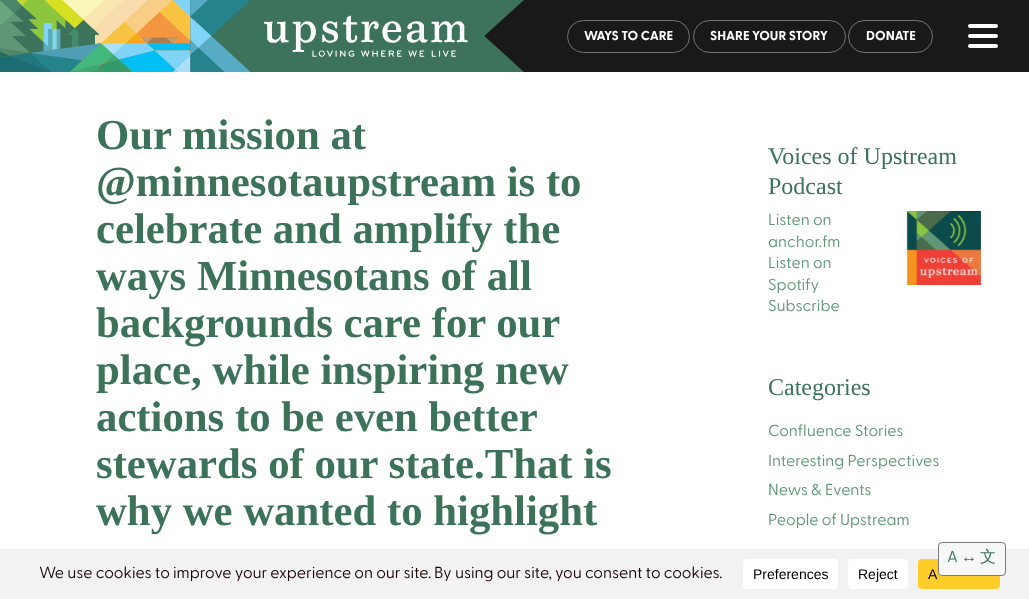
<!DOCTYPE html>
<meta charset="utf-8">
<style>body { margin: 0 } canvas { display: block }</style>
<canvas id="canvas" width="1029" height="599"></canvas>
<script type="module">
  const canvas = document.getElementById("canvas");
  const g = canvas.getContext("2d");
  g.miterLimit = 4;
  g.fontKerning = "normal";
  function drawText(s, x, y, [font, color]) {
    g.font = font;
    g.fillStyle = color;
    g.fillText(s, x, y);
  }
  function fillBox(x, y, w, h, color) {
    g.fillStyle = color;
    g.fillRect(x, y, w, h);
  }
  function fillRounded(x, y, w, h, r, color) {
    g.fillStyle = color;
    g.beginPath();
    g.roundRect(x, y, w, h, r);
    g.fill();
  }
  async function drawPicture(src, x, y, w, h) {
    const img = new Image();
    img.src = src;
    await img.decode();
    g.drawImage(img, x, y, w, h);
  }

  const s1 = ["bold 13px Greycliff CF", "#FFFFFF"];
  const s2 = ["bold 42.75px Liberation Serif", "#3C725A"];
  const s3 = ["24px Liberation Serif", "#3C725A"];
  const s4 = ["16px Greycliff CF", "#609776"];
  const s5 = ["16px Greycliff CF", "#3C725A"];
  const s6 = ["16px Liberation Sans", "#3C725A"];
  const s7 = ["500 16px WenQuanYi Zen Hei", "#3C725A"];
  const s8 = ["16px Greycliff CF", "#170202"];
  const s9 = ["14px Liberation Sans", "#000000"];

  fillBox(0, 0, 1029, 599, "#FFFFFF");
  fillBox(125, 0, 904, 72, "#191919");
  await drawPicture("pic1.png", 0, 0, 524, 72);
  g.beginPath();
  g.roundRect(567.5, 20.5, 122, 32, 16);
  g.strokeStyle = "#767576";
  g.stroke();
  drawText("WAYS TO CARE", 584, 40, s1);
  g.beginPath();
  g.roundRect(693.5, 20.5, 152, 32, 16);
  g.stroke();
  drawText("SHARE YOUR STORY", 710, 40, s1);
  g.beginPath();
  g.roundRect(848.5, 20.5, 84, 32, 16);
  g.stroke();
  drawText("DONATE", 866, 40, s1);
  fillRounded(968, 44, 30, 4, 2, "#FFFFFF");
  fillRounded(968, 24, 30, 4, 2, "#FFFFFF");
  fillRounded(968, 34, 30, 4, 2, "#FFFFFF");
  drawText("Our mission at", 96, 149, s2);
  drawText("@minnesotaupstream is to", 96, 196, s2);
  drawText("celebrate and amplify the", 96, 243, s2);
  drawText("ways Minnesotans of all", 96, 290, s2);
  drawText("backgrounds care for our", 96, 337, s2);
  drawText("place, while inspiring new", 96, 384, s2);
  drawText("actions to be even better", 96, 431, s2);
  drawText("stewards of our state.That is", 96, 478, s2);
  drawText("why we wanted to highlight", 96, 525, s2);
  drawText("Voices of Upstream", 768, 164, s3);
  drawText("Podcast", 768, 194, s3);
  drawText("Listen on", 768, 225, s4);
  await drawPicture("pic2.png", 906, 211, 75, 74);
  drawText("anchor.fm", 768, 247, s4);
  drawText("Listen on", 768, 268, s4);
  drawText("Spotify", 768, 290, s4);
  drawText("Subscribe", 768, 311, s4);
  drawText("Categories", 768, 395, s3);
  drawText("Confluence Stories", 768, 436, s4);
  drawText("Interesting Perspectives", 768, 466, s4);
  drawText("News & Events", 768, 495, s4);
  drawText("People of Upstream", 768, 525, s4);
  fillBox(0, 549, 1029, 50, "#F2F2F2");
  fillRounded(918, 559, 82, 30, 4, "#FFCD2A");
  fillRounded(938, 542, 68, 34, 4, "#F7F7F7");
  g.beginPath();
  g.roundRect(938.5, 542.5, 67, 33, 3.5);
  g.strokeStyle = "rgba(0, 0, 0, 0.5)";
  g.stroke();
  drawText("A", 947, 562, s5);
  drawText("↔", 961, 562, s6);
  drawText("文", 980, 562, s7);
  drawText("We use cookies to improve your experience on our site. By using our site, you consent to cookies.", 39, 578, s8);
  fillRounded(743, 559, 95, 30, 4, "#FFFFFF");
  drawText("Preferences", 753, 579, s9);
  fillRounded(848, 559, 60, 30, 4, "#FFFFFF");
  drawText("Reject", 858, 579, s9);
  drawText("A", 928, 579, s9);
</script>
